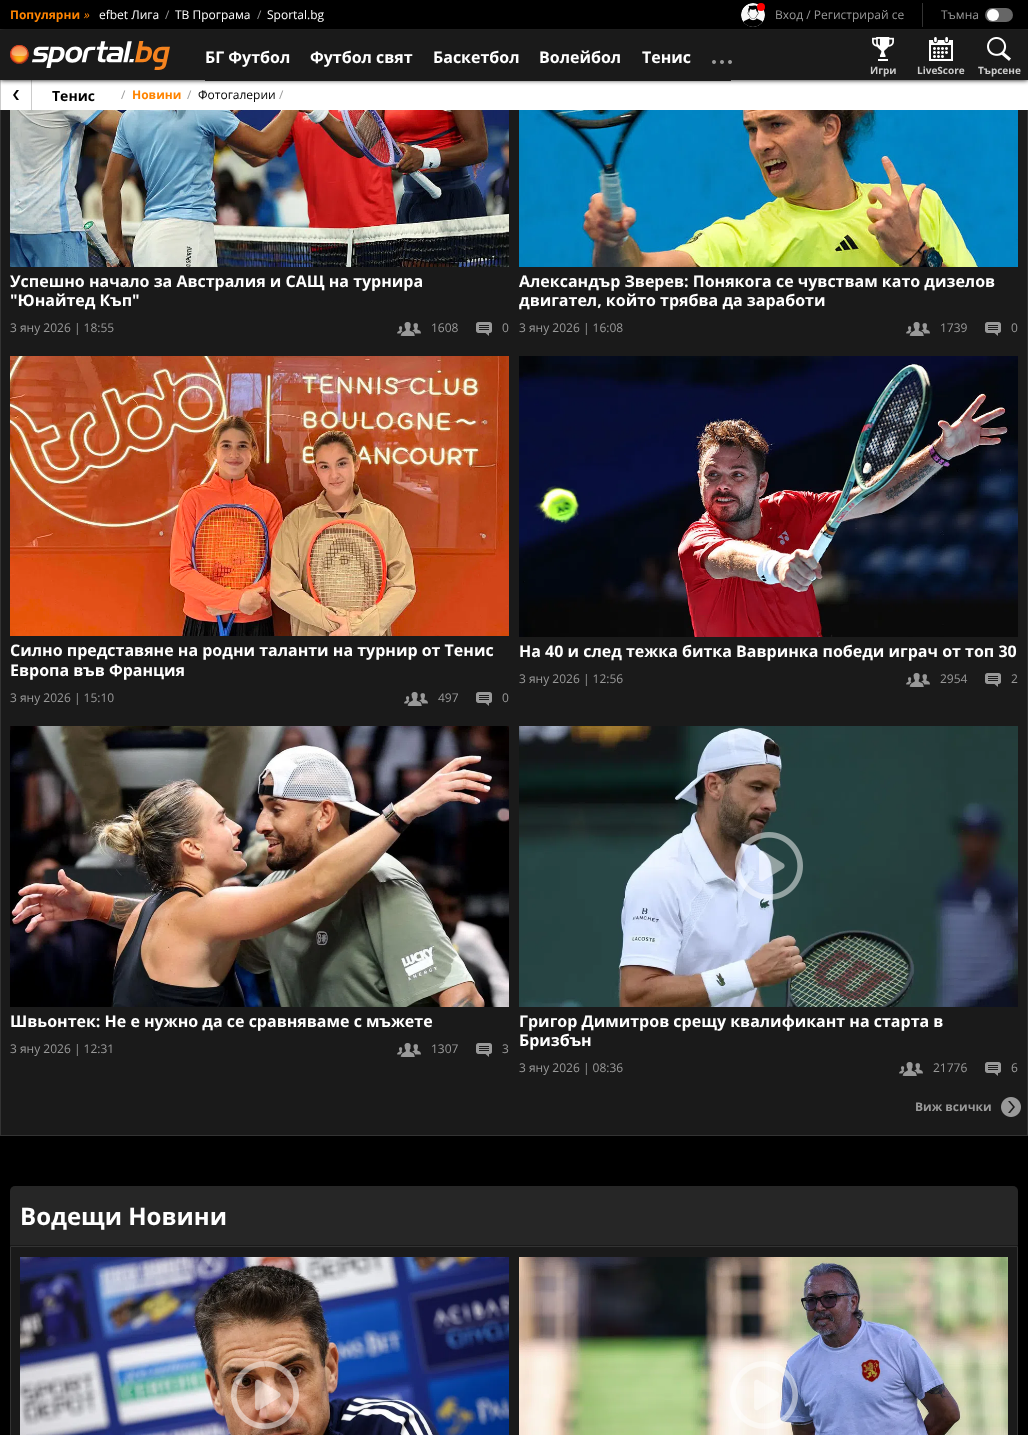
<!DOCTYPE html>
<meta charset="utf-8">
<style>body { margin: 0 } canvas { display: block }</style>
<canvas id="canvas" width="1028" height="1435"></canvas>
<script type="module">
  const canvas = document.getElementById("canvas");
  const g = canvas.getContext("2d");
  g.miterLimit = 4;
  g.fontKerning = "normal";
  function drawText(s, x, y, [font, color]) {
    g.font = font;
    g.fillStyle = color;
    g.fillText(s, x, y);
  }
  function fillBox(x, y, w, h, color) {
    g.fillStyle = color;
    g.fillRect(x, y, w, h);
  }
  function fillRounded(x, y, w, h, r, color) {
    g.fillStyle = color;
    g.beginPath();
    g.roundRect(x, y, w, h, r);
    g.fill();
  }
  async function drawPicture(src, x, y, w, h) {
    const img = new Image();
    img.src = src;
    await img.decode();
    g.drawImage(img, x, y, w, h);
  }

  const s1 = ["bold 12px Open Sans", "#FF8400"];
  const s2 = ["italic 12px Open Sans", "#FF8400"];
  const s3 = ["12px Open Sans", "#FFFFFF"];
  const s4 = ["12px Open Sans", "#999999"];
  const s5 = ["bold 16px Open Sans", "#FFFFFF"];
  const s6 = ["bold 10px Open Sans", "#CCCCCC"];
  const s7 = ["bold 14px Open Sans", "#000000"];
  const s8 = ["bold 12px Open Sans", "#999999"];
  const s9 = ["12px Open Sans", "#000000"];
  const s10 = ["bold 24px Open Sans", "#FFFFFF"];

  fillBox(0, 0, 1028, 1435, "#000000");
  fillBox(1, 110, 1026, 1025, "#1A1A1A");
  g.strokeStyle = "#333333";
  g.strokeRect(0.5, -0.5, 1027, 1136);
  fillBox(0, 0, 1028, 29, "#000000");
  fillBox(0, 29, 1028, 1, "#333333");
  drawText("Популярни", 10, 19, s1);
  drawText("»", 83, 19, s2);
  drawText("efbet Лига", 99, 19, s3);
  drawText("/", 165, 19, s4);
  drawText("ТВ Програма", 175, 19, s3);
  drawText("/", 257, 19, s4);
  drawText("Sportal.bg", 267, 19, s3);
  await drawPicture("pic1.png", 741, 3, 24, 24);
  g.fillStyle = "#FF0000";
  g.beginPath();
  g.arc(761, 7, 4, 0, Math.PI * 2);
  g.fill();
  drawText("Вход / Регистрирай се", 775, 19, s4);
  fillBox(922, 3, 1, 24, "#333333");
  drawText("Тъмна", 941, 19, s4);
  fillRounded(985, 8, 28, 14, 7, "#666666");
  g.fillStyle = "#FFFFFF";
  g.beginPath();
  g.arc(993, 15, 6, 0, Math.PI * 2);
  g.fill();
  fillBox(1, 80, 1027, 30, "#FFFFFF");
  fillBox(31, 80, 1, 30, "#CCCCCC");
  fillBox(0, 80, 1, 30, "#CCCCCC");
  g.fillStyle = "rgba(0, 0, 0, 0.99)";
  g.filter = "blur(2.5px)";
  g.beginPath();
  g.rect(0, 30, 1028, 50);
  g.fill();
  g.filter = "none";
  fillBox(0, 30, 1028, 50, "#1A1A1A");
  await drawPicture("pic2.png", 10, 41, 160, 29);
  fillBox(205, 80, 526, 1, "#1A1A1A");
  drawText("БГ Футбол", 205, 63, s5);
  drawText("Футбол свят", 310, 63, s5);
  drawText("Баскетбол", 433, 63, s5);
  drawText("Волейбол", 539, 63, s5);
  drawText("Тенис", 642, 63, s5);
  await drawPicture("pic3.png", 712, 60, 20, 4);
  await drawPicture("pic4.png", 872, 37, 22, 24);
  drawText("Игри", 870, 74, s6);
  await drawPicture("pic5.png", 929, 37, 24, 24);
  drawText("LiveScore", 917, 74, s6);
  await drawPicture("pic6.png", 987, 37, 24, 24);
  drawText("Търсене", 978, 74, s6);
  await drawPicture("pic7.png", 13, 90, 6, 10);
  drawText("Тенис", 52, 101, s7);
  drawText("/", 121, 99, s4);
  drawText("Новини", 132, 99, s1);
  drawText("/", 201, 99, s8);
  drawText("/", 187, 99, s4);
  drawText("Фотогалерии", 198, 99, s9);
  drawText("/", 279, 99, s4);
  await drawPicture("pic8.png", 10, 110, 499, 157);
  drawText("Успешно начало за Австралия и САЩ на турнира", 10, 287, s5);
  drawText("\"Юнайтед Къп\"", 10, 306, s5);
  drawText("3 яну 2026 | 18:55", 10, 332, s4);
  await drawPicture("pic9.png", 397, 322, 24, 14);
  drawText("1608", 431, 332, s4);
  await drawPicture("pic10.png", 476, 322, 16, 14);
  drawText("0", 502, 332, s4);
  await drawPicture("pic11.png", 519, 110, 499, 157);
  drawText("Александър Зверев: Понякога се чувствам като дизелов", 519, 287, s5);
  drawText("двигател, който трябва да заработи", 519, 306, s5);
  drawText("3 яну 2026 | 16:08", 519, 332, s4);
  await drawPicture("pic9.png", 906, 322, 24, 14);
  drawText("1739", 940, 332, s4);
  await drawPicture("pic10.png", 985, 322, 16, 14);
  drawText("0", 1011, 332, s4);
  await drawPicture("pic12.png", 10, 356, 499, 280);
  drawText("Силно представяне на родни таланти на турнир от Тенис", 10, 656, s5);
  drawText("Европа във Франция", 10, 676, s5);
  drawText("3 яну 2026 | 15:10", 10, 702, s4);
  await drawPicture("pic9.png", 404, 692, 24, 14);
  drawText("497", 438, 702, s4);
  await drawPicture("pic10.png", 476, 692, 16, 14);
  drawText("0", 502, 702, s4);
  await drawPicture("pic13.png", 519, 356, 499, 281);
  drawText("На 40 и след тежка битка Вавринка победи играч от топ 30", 519, 657, s5);
  drawText("3 яну 2026 | 12:56", 519, 683, s4);
  await drawPicture("pic9.png", 906, 673, 24, 14);
  drawText("2954", 940, 683, s4);
  await drawPicture("pic10.png", 985, 673, 16, 14);
  drawText("2", 1011, 683, s4);
  await drawPicture("pic14.png", 10, 726, 499, 281);
  drawText("Швьонтек: Не е нужно да се сравняваме с мъжете", 10, 1027, s5);
  drawText("3 яну 2026 | 12:31", 10, 1053, s4);
  await drawPicture("pic9.png", 397, 1043, 24, 14);
  drawText("1307", 431, 1053, s4);
  await drawPicture("pic10.png", 476, 1043, 16, 14);
  drawText("3", 502, 1053, s4);
  await drawPicture("pic15.png", 519, 726, 499, 281);
  await drawPicture("pic16.png", 735, 832, 68, 68);
  drawText("Григор Димитров срещу квалификант на старта в", 519, 1027, s5);
  drawText("Бризбън", 519, 1046, s5);
  drawText("3 яну 2026 | 08:36", 519, 1072, s4);
  await drawPicture("pic9.png", 899, 1062, 24, 14);
  drawText("21776", 933, 1072, s4);
  await drawPicture("pic10.png", 985, 1062, 16, 14);
  drawText("6", 1011, 1072, s4);
  await drawPicture("pic17.png", 1001, 1097, 20, 20);
  drawText("Виж всички", 915, 1111, s8);
  g.fillStyle = "#262626";
  g.beginPath();
  g.roundRect(10, 1186, 1008, 60, [5, 5, 0, 0]);
  g.fill();
  fillBox(10, 1245, 1008, 1, "#1A1A1A");
  drawText("Водещи Новини", 20, 1225, s10);
  g.fillStyle = "#1A1A1A";
  g.beginPath();
  g.rect(10.5, 1246.5, 1007, 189);
  g.fill();
  g.stroke();
  await drawPicture("pic18.png", 20, 1257, 489, 178);
  await drawPicture("pic19.png", 231, 1361, 68, 68);
  await drawPicture("pic20.png", 519, 1257, 489, 178);
  await drawPicture("pic21.png", 730, 1361, 68, 68);
</script>
